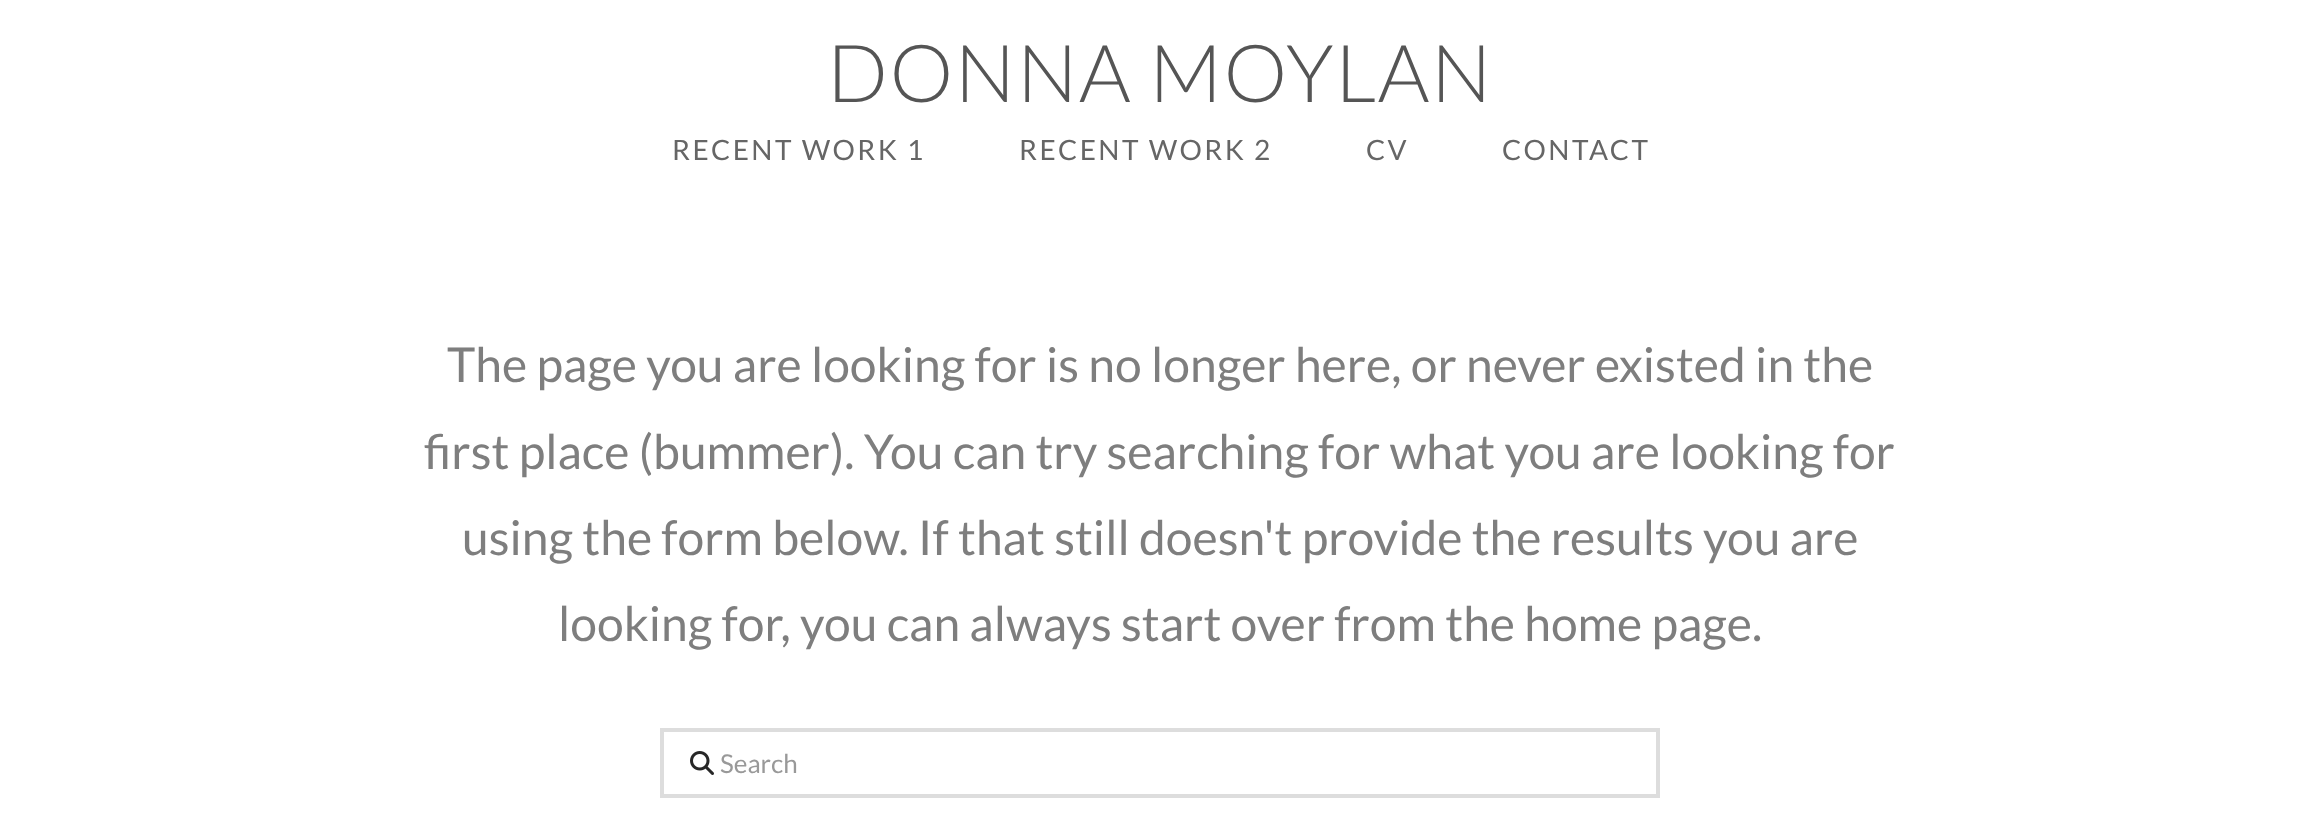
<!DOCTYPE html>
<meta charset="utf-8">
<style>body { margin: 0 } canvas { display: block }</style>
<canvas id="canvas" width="2320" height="835"></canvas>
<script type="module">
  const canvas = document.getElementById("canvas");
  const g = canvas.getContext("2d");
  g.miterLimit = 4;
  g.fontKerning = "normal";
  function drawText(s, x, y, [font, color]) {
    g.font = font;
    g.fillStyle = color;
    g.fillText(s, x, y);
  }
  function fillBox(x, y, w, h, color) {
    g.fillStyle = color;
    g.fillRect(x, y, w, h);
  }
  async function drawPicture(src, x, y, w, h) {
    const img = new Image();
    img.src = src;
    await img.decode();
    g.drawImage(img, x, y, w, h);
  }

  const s1 = ["300 80px Lato", "#555555"];
  const s2 = ["28px Lato", "#666666"];
  const s3 = ["48px Lato", "#7E7E7E"];
  const s4 = ["26px Lato", "#999999"];

  fillBox(0, 0, 2320, 835, "#FFFFFF");
  g.letterSpacing = "1.6px";
  drawText("DONNA MOYLAN", 827, 102, s1);
  g.letterSpacing = "2.4px";
  drawText("RECENT WORK 1", 672, 160, s2);
  drawText("RECENT WORK 2", 1019, 160, s2);
  drawText("CV", 1366, 160, s2);
  drawText("CONTACT", 1502, 160, s2);
  g.letterSpacing = "0px";
  drawText("The page you are looking for is no longer here, or never existed in the", 447, 382, s3);
  drawText("first place (bummer). You can try searching for what you are looking for", 424, 469, s3);
  drawText("using the form below. If that still doesn't provide the results you are", 462, 555, s3);
  drawText("looking for, you can always start over from the home page.", 558, 641, s3);
  g.strokeStyle = "#DDDDDD";
  g.lineWidth = 4;
  g.strokeRect(662, 730, 996, 66);
  await drawPicture("pic1.png", 690, 751, 24, 24);
  drawText("Search", 720, 773, s4);
</script>
